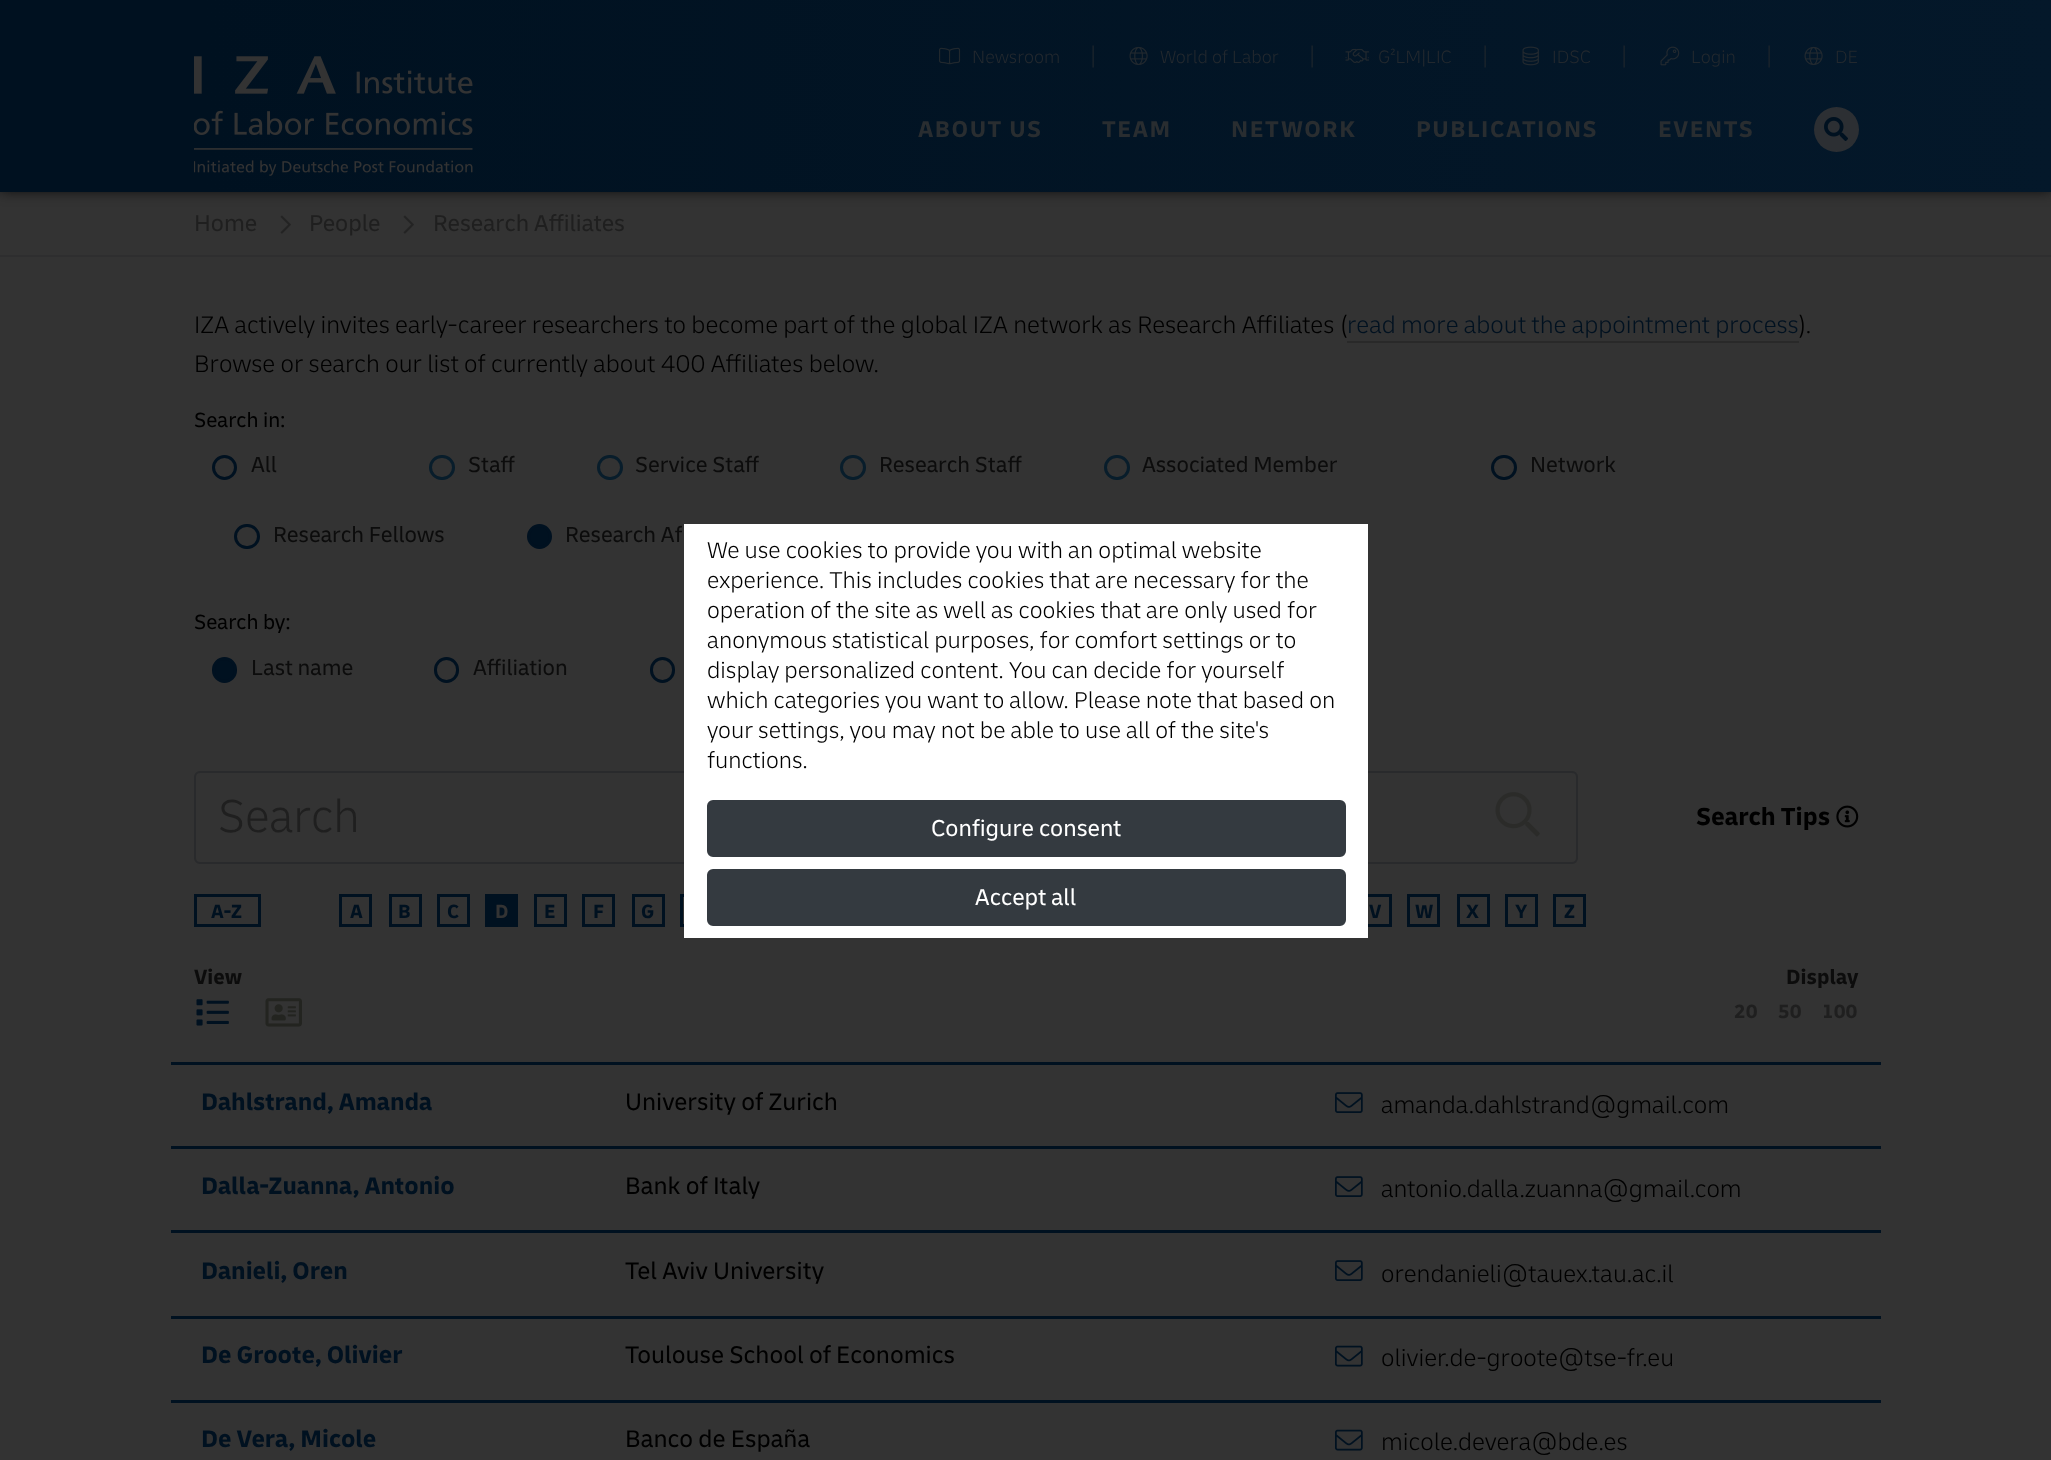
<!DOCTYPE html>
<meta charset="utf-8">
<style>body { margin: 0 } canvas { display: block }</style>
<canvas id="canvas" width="2051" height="1460"></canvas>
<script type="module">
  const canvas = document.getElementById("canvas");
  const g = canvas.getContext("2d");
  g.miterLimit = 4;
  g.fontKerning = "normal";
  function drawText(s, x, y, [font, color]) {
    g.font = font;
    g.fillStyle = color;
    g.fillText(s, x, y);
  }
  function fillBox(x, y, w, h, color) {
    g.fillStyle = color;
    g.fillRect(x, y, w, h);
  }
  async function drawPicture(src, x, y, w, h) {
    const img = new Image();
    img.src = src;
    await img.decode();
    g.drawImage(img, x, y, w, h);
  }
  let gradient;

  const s1 = ["300 18.75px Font", "#22282E"];
  const s2 = ["300 24px Font", "#1B242C"];
  const s3 = ["bold 24px Font", "#292D30"];
  const s4 = ["24px Font", "#1F1F1F"];
  const s5 = ["300 25.2px Font", "#000000"];
  const s6 = ["300 25.2px Font", "#001120"];
  const s7 = ["21.5px Font", "#000000"];
  const s8 = ["22.75px Font", "#0C0C0C"];
  const s9 = ["300 48px Font", "#1F1F1F"];
  const s10 = ["bold 25.75px Font", "#000000"];
  const s11 = ["bold 20px Font", "#001120"];
  const s12 = ["bold 20px Font", "#333333"];
  const s13 = ["bold 21.5px Font", "#0C0C0C"];
  const s14 = ["bold 20px Font", "#1F1F1F"];
  const s15 = ["bold 25.2px Font", "#001120"];
  const s16 = ["25.2px Font", "#000000"];
  const s17 = ["300 24px Font", "#000000"];
  const s18 = ["24px Font", "#FFFFFF"];

  fillBox(0, 0, 2051, 1460, "#333333");
  g.fillStyle = "#000000";
  g.filter = "blur(7.5px)";
  g.beginPath();
  g.rect(0, -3, 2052, 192);
  g.fill();
  g.filter = "none";
  gradient = g.createLinearGradient(0, 96, 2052, 96);
  gradient.addColorStop(0.1, "#001120");
  gradient.addColorStop(1, "#04182A");
  g.fillStyle = gradient;
  g.fillRect(0, 0, 2051, 192);
  await drawPicture("pic1.png", 194, 56, 279, 120);
  await drawPicture("pic2.png", 939, 47, 22, 18);
  drawText("Newsroom", 972, 63, s1);
  drawText("|", 1090, 63, s2);
  await drawPicture("pic3.png", 1129, 46, 19, 19);
  drawText("World of Labor", 1160, 63, s1);
  drawText("|", 1309, 63, s2);
  await drawPicture("pic4.png", 1345, 48, 24, 15);
  drawText("G²LM|LIC", 1378, 63, s1);
  drawText("|", 1482, 63, s2);
  await drawPicture("pic5.png", 1522, 46, 17, 20);
  drawText("IDSC", 1552, 63, s1);
  drawText("|", 1621, 63, s2);
  await drawPicture("pic6.png", 1660, 46, 20, 20);
  drawText("Login", 1691, 63, s1);
  drawText("|", 1766, 63, s2);
  await drawPicture("pic7.png", 1804, 46, 19, 19);
  drawText("DE", 1835, 63, s1);
  g.letterSpacing = "1.5px";
  drawText("ABOUT US", 918, 137, s3);
  drawText("TEAM", 1102, 137, s3);
  drawText("NETWORK", 1231, 137, s3);
  drawText("PUBLICATIONS", 1416, 137, s3);
  drawText("EVENTS", 1658, 137, s3);
  g.fillStyle = "#2C2F33";
  g.beginPath();
  g.arc(1836.5, 129.5, 22.5, 0, Math.PI * 2);
  g.fill();
  await drawPicture("pic8.png", 1824, 117, 24, 24);
  g.letterSpacing = "0px";
  drawText("Home", 194, 231, s4);
  await drawPicture("pic9.png", 280, 215, 11, 19);
  drawText("People", 309, 231, s4);
  await drawPicture("pic9.png", 403, 215, 11, 19);
  drawText("Research Affiliates", 433, 231, s4);
  fillBox(0, 255, 2051, 2, "#2E2E2F");
  drawText("IZA actively invites early-career researchers to become part of the global IZA network as Research Affiliates (", 194, 333, s5);
  drawText("read more about the appointment process", 1347, 333, s6);
  fillBox(1347, 341, 452, 2, "#292929");
  drawText(").", 1798, 333, s5);
  drawText("Browse or search our list of currently about 400 Affiliates below.", 194, 372, s5);
  drawText("Search in:", 194, 427, s7);
  g.beginPath();
  g.arc(224.5, 467.5, 11, 0, Math.PI * 2);
  g.strokeStyle = "#001120";
  g.lineWidth = 3;
  g.stroke();
  drawText("All", 251, 472, s8);
  g.beginPath();
  g.roundRect(430.5, 456.5, 23, 22, 11);
  g.strokeStyle = "#081D2B";
  g.stroke();
  drawText("Staff", 468, 472, s8);
  g.beginPath();
  g.roundRect(598.5, 456.5, 23, 22, 11);
  g.stroke();
  drawText("Service Staff", 635, 472, s8);
  g.beginPath();
  g.roundRect(841.5, 456.5, 23, 22, 11);
  g.stroke();
  drawText("Research Staff", 879, 472, s8);
  g.beginPath();
  g.roundRect(1105.5, 456.5, 23, 22, 11);
  g.stroke();
  drawText("Associated Member", 1142, 472, s8);
  g.beginPath();
  g.roundRect(1492.5, 456.5, 23, 22, 11);
  g.strokeStyle = "#001120";
  g.stroke();
  drawText("Network", 1530, 472, s8);
  g.beginPath();
  g.roundRect(235.5, 525.5, 23, 22, 11);
  g.stroke();
  drawText("Research Fellows", 273, 542, s8);
  g.fillStyle = "#001120";
  g.beginPath();
  g.arc(539.5, 536.5, 11, 0, Math.PI * 2);
  g.fill();
  g.stroke();
  drawText("Research Af", 565, 542, s8);
  drawText("Search by:", 194, 629, s7);
  g.fillStyle = "#001120";
  g.beginPath();
  g.roundRect(213.5, 658.5, 22, 23, 11);
  g.fill();
  g.stroke();
  drawText("Last name", 251, 675, s8);
  g.beginPath();
  g.roundRect(435.5, 658.5, 22, 23, 11);
  g.stroke();
  drawText("Affiliation", 473, 675, s8);
  g.beginPath();
  g.roundRect(651.5, 658.5, 22, 23, 11);
  g.stroke();
  g.beginPath();
  g.roundRect(195, 772, 1382, 91, 5);
  g.strokeStyle = "#292A2C";
  g.lineWidth = 2;
  g.stroke();
  drawText("Search", 218, 832, s9);
  await drawPicture("pic10.png", 1495, 792, 45, 45);
  drawText("Search Tips", 1696, 825, s10);
  await drawPicture("pic11.png", 1836, 805, 23, 23);
  g.strokeStyle = "#001120";
  g.lineWidth = 3;
  g.strokeRect(195.5, 895.5, 64, 30);
  drawText("A-Z", 211, 918, s11);
  g.strokeRect(340.5, 895.5, 30, 30);
  drawText("A", 350, 918, s11);
  g.strokeRect(390.5, 895.5, 30, 30);
  drawText("B", 398, 918, s11);
  g.strokeRect(438.5, 895.5, 30, 30);
  drawText("C", 447, 918, s11);
  fillBox(485, 894, 33, 33, "#001120");
  drawText("D", 495, 918, s12);
  g.strokeRect(535.5, 895.5, 30, 30);
  drawText("E", 544, 918, s11);
  g.strokeRect(583.5, 895.5, 30, 30);
  drawText("F", 593, 918, s11);
  g.strokeRect(633.5, 895.5, 30, 30);
  drawText("G", 641, 918, s11);
  g.strokeRect(681.5, 895.5, 30, 30);
  g.strokeRect(1360.5, 895.5, 30, 30);
  drawText("V", 1369, 918, s11);
  g.strokeRect(1408.5, 895.5, 30, 30);
  drawText("W", 1415, 918, s11);
  g.strokeRect(1458.5, 895.5, 30, 30);
  drawText("X", 1466, 918, s11);
  g.strokeRect(1506.5, 895.5, 30, 30);
  drawText("Y", 1515, 918, s11);
  g.strokeRect(1554.5, 895.5, 30, 30);
  drawText("Z", 1564, 918, s11);
  drawText("View", 194, 984, s13);
  drawText("Display", 1786, 984, s13);
  await drawPicture("pic12.png", 196, 999, 33, 27);
  await drawPicture("pic13.png", 265, 998, 37, 29);
  drawText("20", 1734, 1018, s14);
  drawText("50", 1778, 1018, s14);
  drawText("100", 1822, 1018, s14);
  fillBox(171, 1062, 1710, 3, "#001120");
  drawText("Dahlstrand, Amanda", 201, 1110, s15);
  drawText("University of Zurich", 625, 1110, s16);
  await drawPicture("pic14.png", 1335, 1092, 28, 21);
  drawText("amanda.dahlstrand@gmail.com", 1381, 1113, s5);
  fillBox(171, 1146, 1710, 3, "#001120");
  drawText("Dalla-Zuanna, Antonio", 201, 1194, s15);
  drawText("Bank of Italy", 625, 1194, s16);
  await drawPicture("pic14.png", 1335, 1176, 28, 21);
  drawText("antonio.dalla.zuanna@gmail.com", 1381, 1197, s5);
  fillBox(171, 1230, 1710, 3, "#001120");
  drawText("Danieli, Oren", 201, 1279, s15);
  drawText("Tel Aviv University", 625, 1279, s16);
  await drawPicture("pic14.png", 1335, 1260, 28, 21);
  drawText("orendanieli@tauex.tau.ac.il", 1381, 1282, s5);
  fillBox(171, 1316, 1710, 3, "#001120");
  drawText("De Groote, Olivier", 201, 1363, s15);
  drawText("Toulouse School of Economics", 625, 1363, s16);
  await drawPicture("pic15.png", 1335, 1345, 28, 22);
  drawText("olivier.de-groote@tse-fr.eu", 1381, 1366, s5);
  fillBox(171, 1400, 1710, 3, "#001120");
  drawText("De Vera, Micole", 201, 1447, s15);
  drawText("Banco de España", 625, 1447, s16);
  await drawPicture("pic15.png", 1335, 1429, 28, 22);
  drawText("micole.devera@bde.es", 1381, 1450, s5);
  fillBox(684, 524, 684, 414, "#FFFFFF");
  drawText("We use cookies to provide you with an optimal website", 707, 558, s17);
  drawText("experience. This includes cookies that are necessary for the", 707, 588, s17);
  drawText("operation of the site as well as cookies that are only used for", 707, 618, s17);
  drawText("anonymous statistical purposes, for comfort settings or to", 707, 648, s17);
  drawText("display personalized content. You can decide for yourself", 707, 678, s17);
  drawText("which categories you want to allow. Please note that based on", 707, 708, s17);
  drawText("your settings, you may not be able to use all of the site's", 707, 738, s17);
  drawText("functions.", 707, 768, s17);
  g.fillStyle = "#343A40";
  g.beginPath();
  g.roundRect(708, 801, 637, 55, 5);
  g.fill();
  g.strokeStyle = "#343A40";
  g.lineWidth = 2;
  g.stroke();
  drawText("Configure consent", 931, 836, s18);
  g.fillStyle = "#343A40";
  g.beginPath();
  g.roundRect(708, 870, 637, 55, 5);
  g.fill();
  g.stroke();
  drawText("Accept all", 975, 905, s18);
</script>
